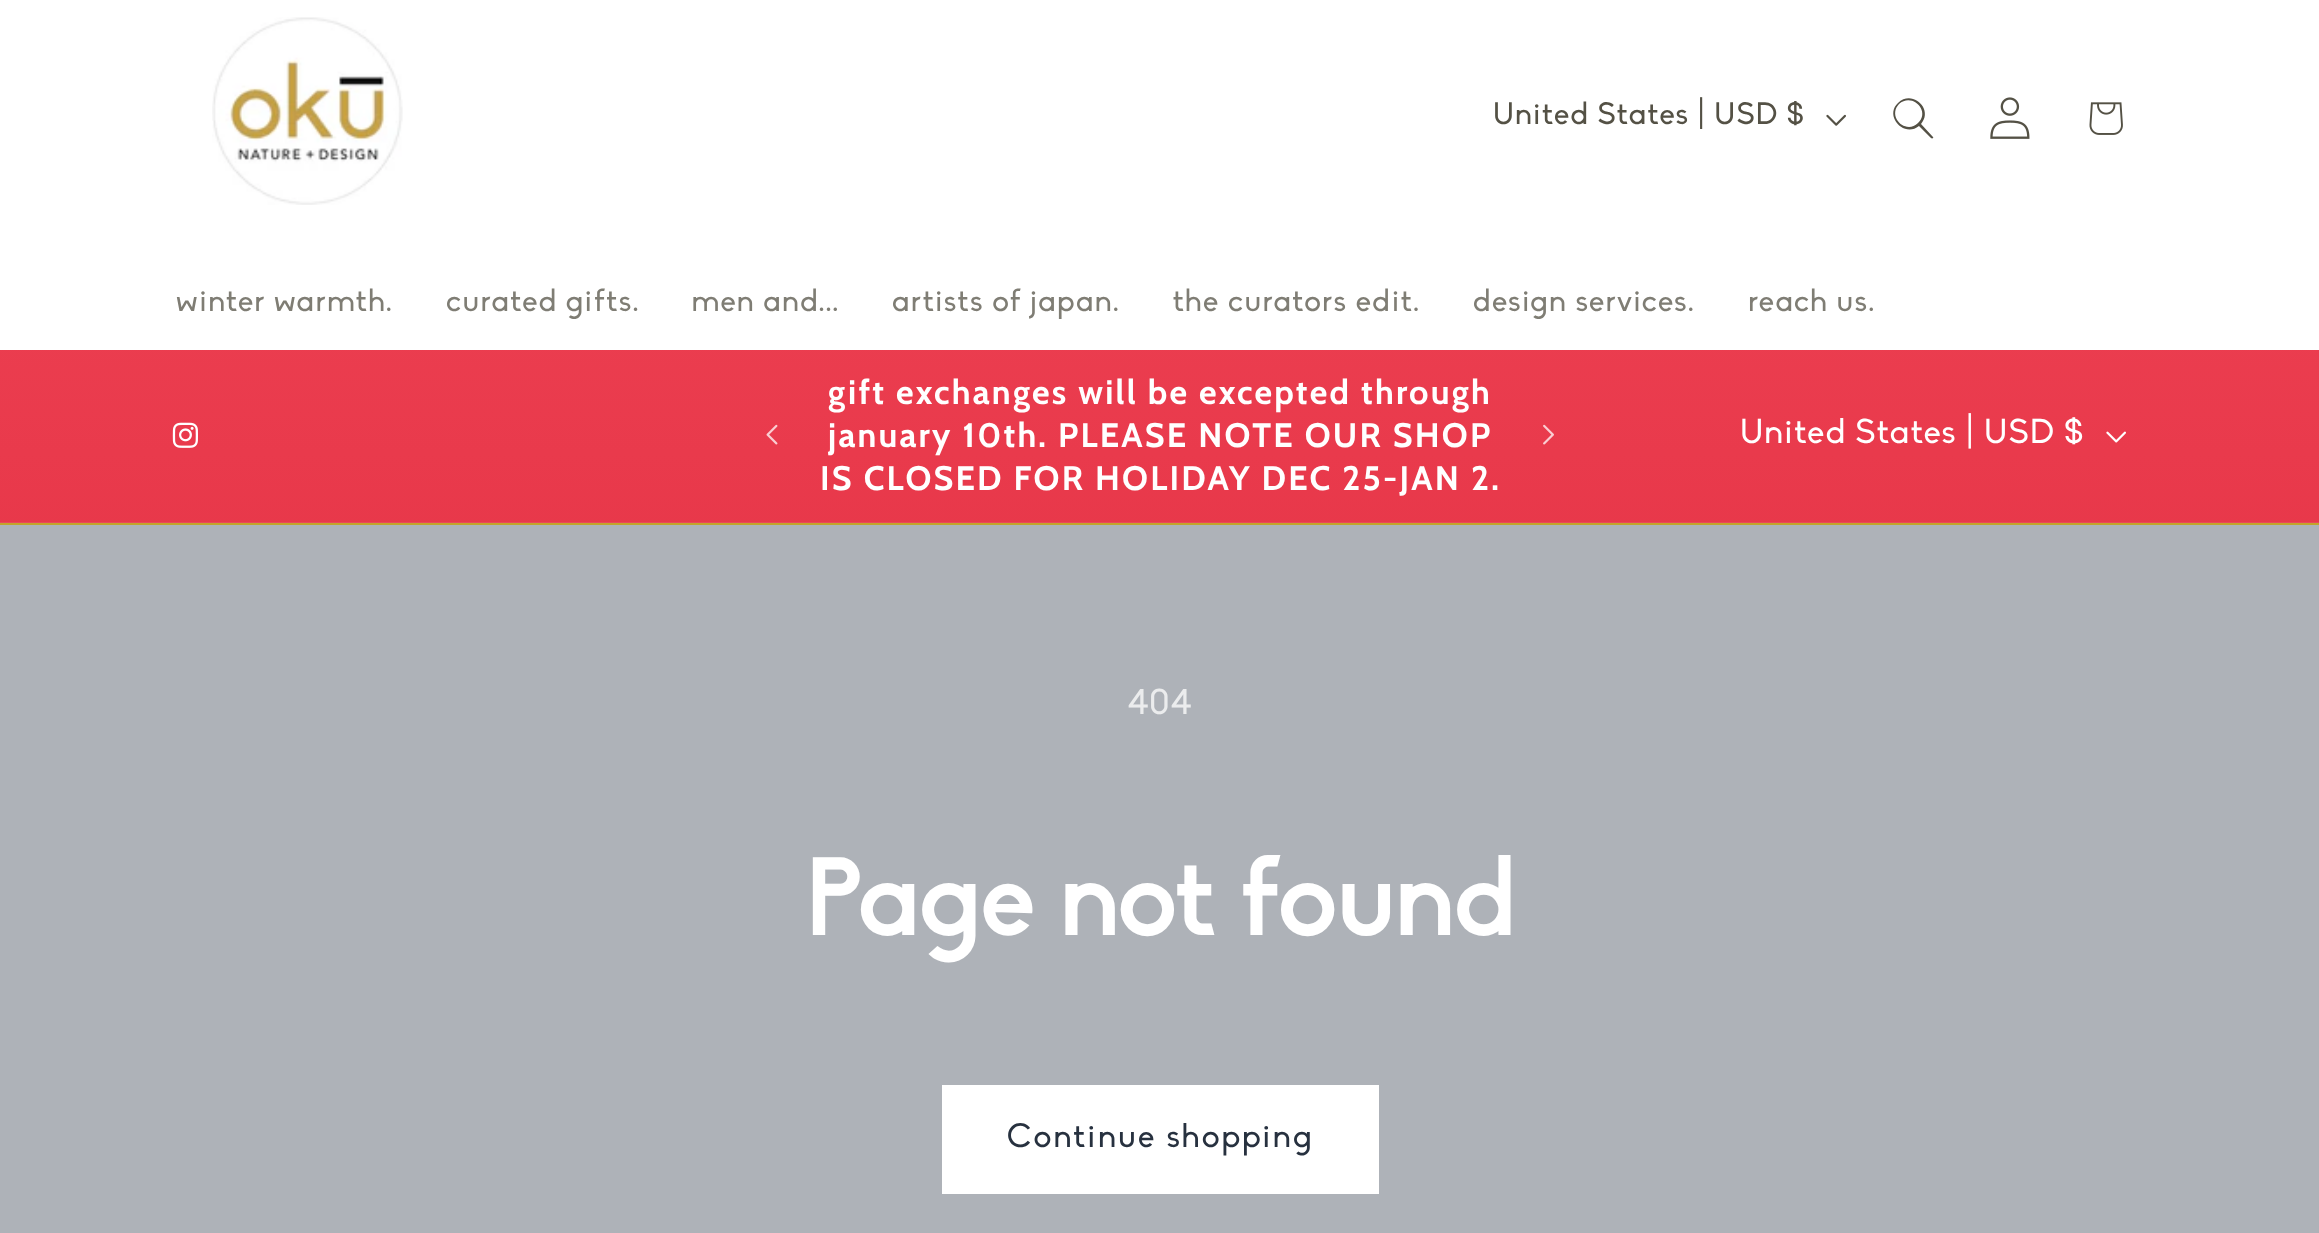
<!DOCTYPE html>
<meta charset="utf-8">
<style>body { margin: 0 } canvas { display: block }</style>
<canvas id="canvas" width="2319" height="1233"></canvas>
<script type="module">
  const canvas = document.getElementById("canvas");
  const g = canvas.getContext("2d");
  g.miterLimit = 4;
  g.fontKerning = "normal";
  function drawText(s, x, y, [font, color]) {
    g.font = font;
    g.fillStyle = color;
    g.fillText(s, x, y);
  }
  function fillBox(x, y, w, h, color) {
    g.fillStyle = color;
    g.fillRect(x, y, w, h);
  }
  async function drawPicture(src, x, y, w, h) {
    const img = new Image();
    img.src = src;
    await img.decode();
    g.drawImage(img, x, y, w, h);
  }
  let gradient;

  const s1 = ["30.6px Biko", "#545145"];
  const s2 = ["30.6px Biko", "#7F7D74"];
  const s3 = ["bold 34.1px Cabin", "#FFFFFF"];
  const s4 = ["34.1px Biko", "#FFFFFF"];
  const s5 = ["35px Biko", "#EBECED"];
  const s6 = ["bold 105px Biko", "#FFFFFF"];
  const s7 = ["32.75px Biko", "#27313F"];

  fillBox(0, 0, 2319, 1233, "#AEB2B8");
  fillBox(0, 0, 2319, 350, "#FFFFFF");
  await drawPicture("pic1.png", 212, 17, 191, 188);
  g.letterSpacing = "1.3px";
  drawText("United States | USD $", 1493, 124, s1);
  await drawPicture("pic2.png", 1826, 114, 20, 12);
  g.beginPath();
  g.moveTo(1918, 123);
  g.bezierCurveTo(1906, 135, 1887, 117, 1899, 104);
  g.bezierCurveTo(1912, 92, 1931, 111, 1918, 123);
  g.moveTo(1919, 126);
  g.bezierCurveTo(1904, 138, 1884, 116, 1898, 103);
  g.bezierCurveTo(1912, 89, 1934, 109, 1921, 124);
  g.lineTo(1933, 137);
  g.bezierCurveTo(1934, 138, 1932, 139, 1931, 138);
  g.closePath();
  g.fill("evenodd");
  await drawPicture("pic3.png", 1990, 97, 40, 42);
  await drawPicture("pic4.png", 2089, 102, 34, 33);
  drawText("winter warmth.", 176, 311, s2);
  drawText("curated gifts.", 446, 311, s2);
  drawText("men and...", 692, 311, s2);
  drawText("artists of japan.", 892, 311, s2);
  drawText("the curators edit.", 1173, 311, s2);
  drawText("design services.", 1473, 311, s2);
  drawText("reach us.", 1748, 311, s2);
  gradient = g.createLinearGradient(1160, 0, 1160, 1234);
  gradient.addColorStop(0, "#F04557");
  gradient.addColorStop(1, "#DD2739");
  g.fillStyle = gradient;
  g.fillRect(0, 350, 2319, 172);
  gradient = g.createLinearGradient(1160, 0, 1160, 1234);
  gradient.addColorStop(0, "#F15464");
  gradient.addColorStop(1, "#E03849");
  g.fillStyle = gradient;
  g.fillRect(0, 522, 2319, 1);
  await drawPicture("pic5.png", 172, 422, 26, 26);
  await drawPicture("pic6.png", 766, 424, 12, 21);
  g.letterSpacing = "2.2px";
  drawText("gift exchanges will be excepted through", 828, 404, s3);
  drawText("january 10th. PLEASE NOTE OUR SHOP", 828, 447, s3);
  drawText("IS CLOSED FOR HOLIDAY DEC 25-JAN 2.", 820, 490, s3);
  await drawPicture("pic7.png", 1543, 424, 11, 21);
  g.letterSpacing = "1.3px";
  drawText("United States | USD $", 1740, 443, s4);
  await drawPicture("pic8.png", 2106, 431, 20, 12);
  fillBox(0, 523, 2319, 2, "#C2A42A");
  drawText("404", 1128, 714, s5);
  g.letterSpacing = "1.5px";
  drawText("Page not found", 805, 935, s6);
  fillBox(942, 1085, 437, 109, "#FFFFFF");
  g.letterSpacing = "2.2px";
  drawText("Continue shopping", 1007, 1147, s7);
</script>
